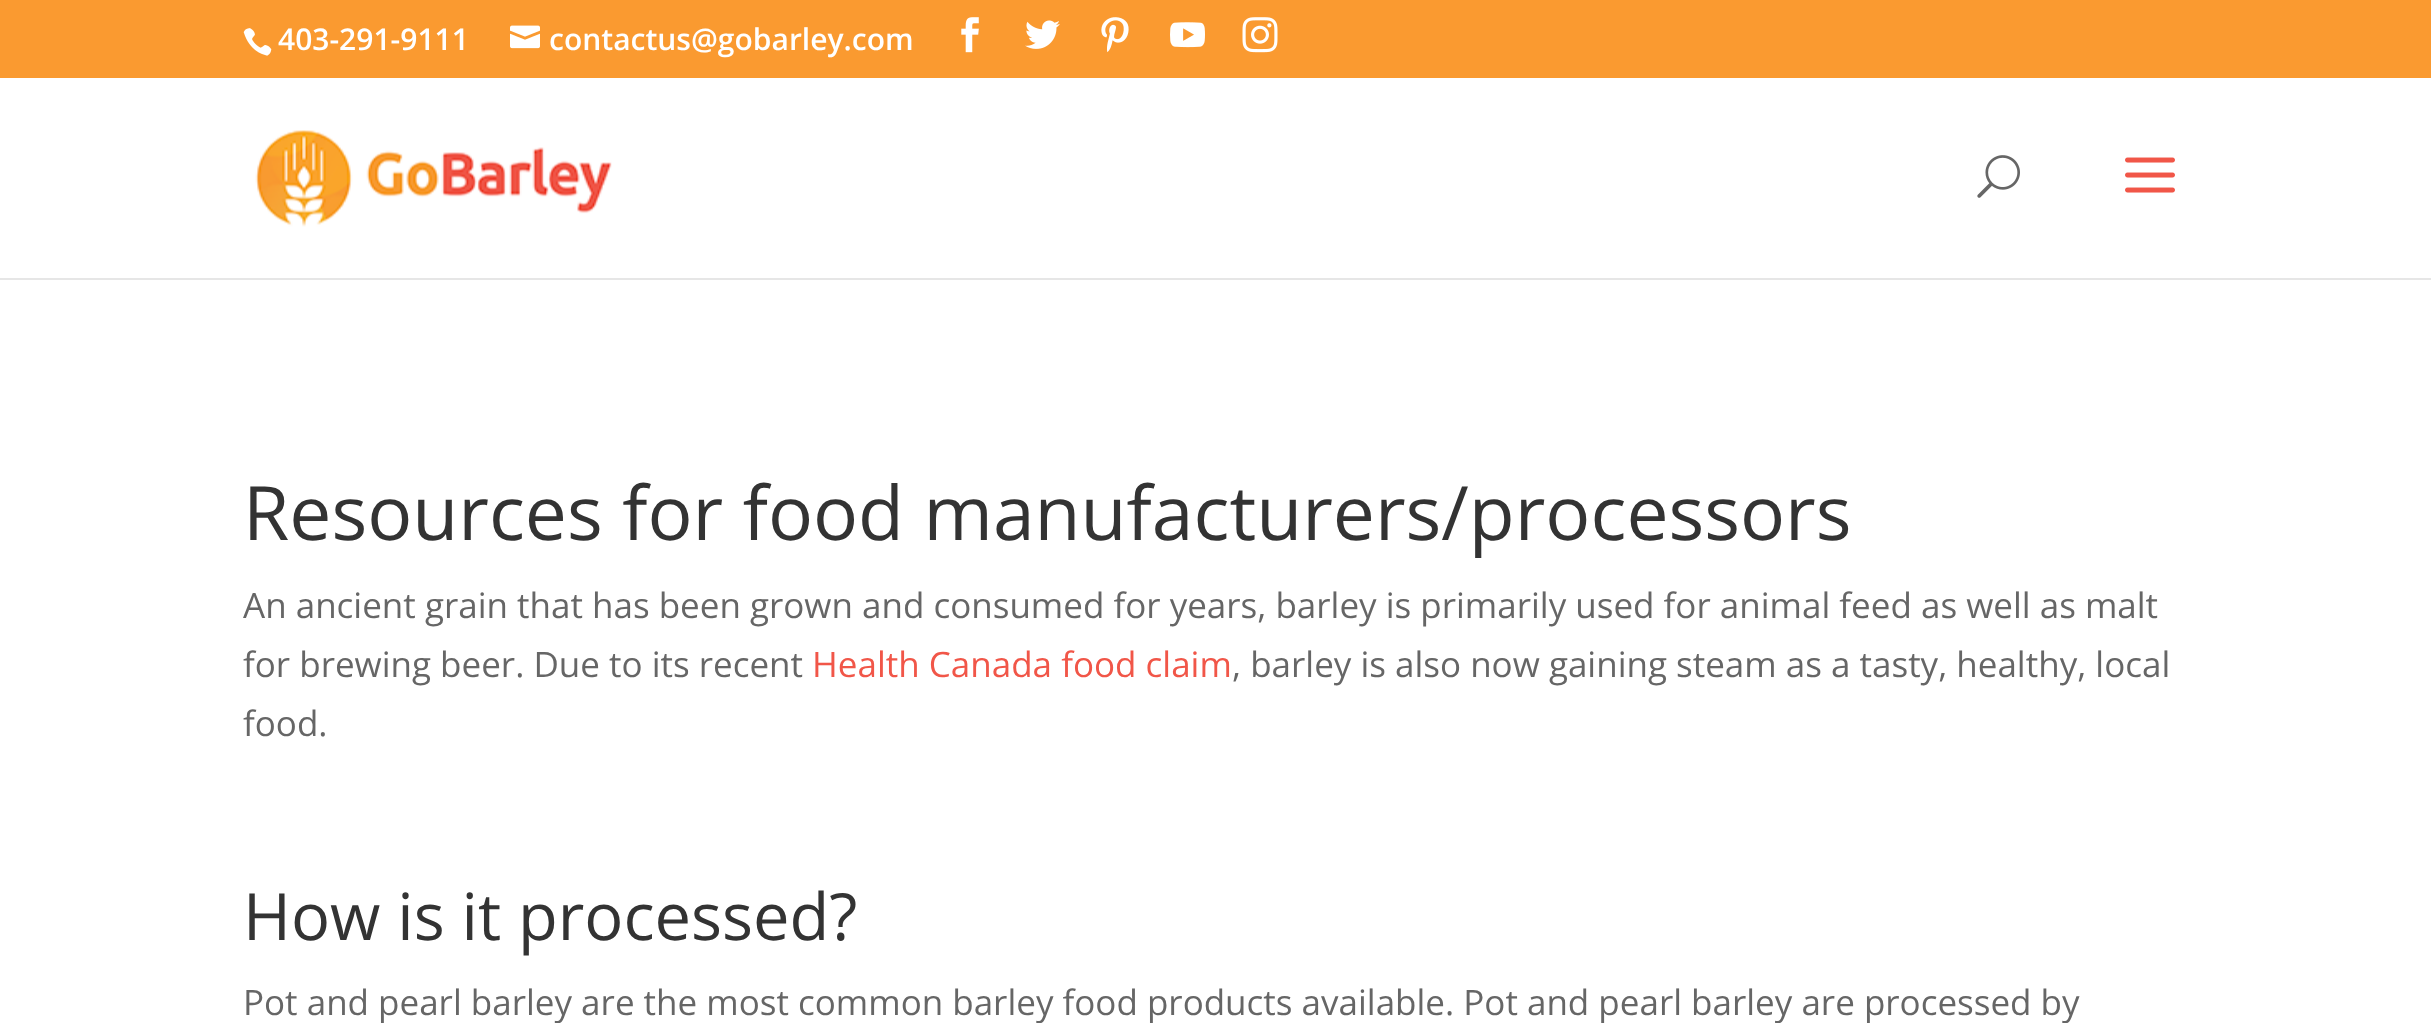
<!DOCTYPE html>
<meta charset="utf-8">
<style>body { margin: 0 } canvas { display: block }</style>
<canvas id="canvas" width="2431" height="1023"></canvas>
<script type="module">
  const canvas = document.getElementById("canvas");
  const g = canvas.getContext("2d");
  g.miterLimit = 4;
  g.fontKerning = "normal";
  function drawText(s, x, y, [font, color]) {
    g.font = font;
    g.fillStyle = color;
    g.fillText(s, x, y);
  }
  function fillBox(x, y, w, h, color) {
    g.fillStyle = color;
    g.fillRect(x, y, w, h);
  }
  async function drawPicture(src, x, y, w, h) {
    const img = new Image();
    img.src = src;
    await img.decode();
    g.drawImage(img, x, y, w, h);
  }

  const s1 = ["600 30px Open Sans", "#FFFFFF"];
  const s2 = ["75px Open Sans", "#333333"];
  const s3 = ["35px Open Sans", "#666666"];
  const s4 = ["35px Open Sans", "#F15648"];
  const s5 = ["65px Open Sans", "#333333"];

  fillBox(0, 0, 2431, 1023, "#FFFFFF");
  fillBox(0, 0, 2431, 78, "#FA9A30");
  await drawPicture("pic1.png", 243, 28, 29, 28);
  drawText("403-291-9111", 278, 50, s1);
  await drawPicture("pic2.png", 510, 25, 30, 24);
  drawText("contactus@gobarley.com", 549, 50, s1);
  await drawPicture("pic3.png", 961, 17, 18, 36);
  await drawPicture("pic4.png", 1025, 20, 35, 29);
  await drawPicture("pic5.png", 1101, 17, 28, 36);
  await drawPicture("pic6.png", 1170, 22, 35, 26);
  await drawPicture("pic7.png", 1242, 17, 36, 36);
  g.fillStyle = "#E6E6E6";
  g.beginPath();
  g.moveTo(0, 278);
  g.lineTo(0, 280);
  g.lineTo(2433, 280);
  g.lineTo(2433, 80);
  g.lineTo(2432, 80);
  g.lineTo(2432, 278);
  g.closePath();
  g.fill();
  await drawPicture("pic8.png", 255, 130, 357, 97);
  await drawPicture("pic9.png", 1977, 155, 43, 43);
  await drawPicture("pic10.png", 2125, 157, 50, 36);
  drawText("Resources for food manufacturers/processors", 243, 540, s2);
  drawText("An ancient grain that has been grown and consumed for years, barley is primarily used for animal feed as well as malt", 243, 618, s3);
  drawText("for brewing beer. Due to its recent", 243, 677, s3);
  drawText("Health Canada food claim", 812, 677, s4);
  drawText(", barley is also now gaining steam as a tasty, healthy, local", 1232, 677, s3);
  drawText("food.", 243, 736, s3);
  drawText("How is it processed?", 243, 940, s5);
  drawText("Pot and pearl barley are the most common barley food products available. Pot and pearl barley are processed by", 243, 1015, s3);
</script>
